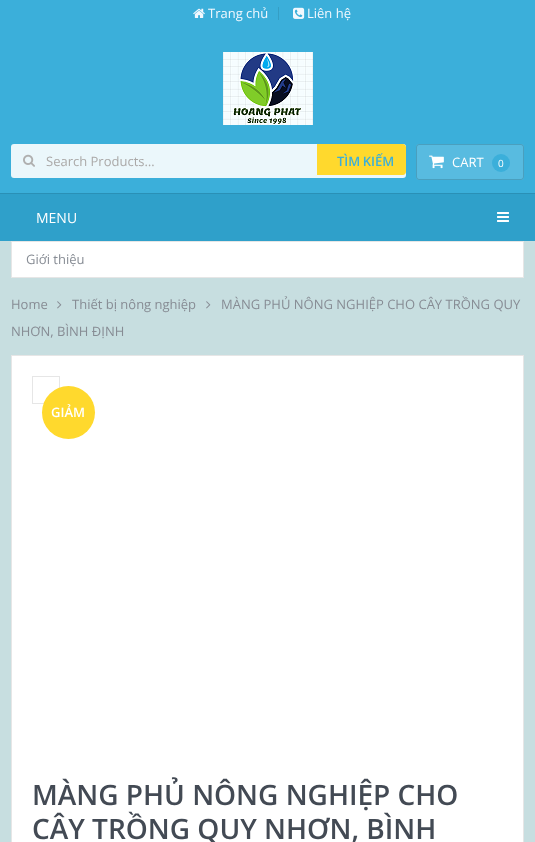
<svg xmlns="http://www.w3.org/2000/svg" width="535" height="842">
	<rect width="100%" height="100%" fill="#C7DEE0" />
	<rect x="0" y="0" width="535" height="193" fill="#3BAFDA" />
	<rect x="278" y="7" width="1" height="13" fill="#359EC4" />
	<image x="193" y="8" width="12" height="10" href="assets/img1.png" />
	<text x="208" y="18" font-family="Open Sans" font-size="13" fill="#F1F8FE">Trang chủ</text>
	<image x="293" y="7" width="12" height="12" href="assets/img2.png" />
	<text x="307" y="18" font-family="Open Sans" font-size="13" fill="#F1F8FE">Liên hệ</text>
	<image x="223" y="52" width="90" height="73" href="assets/img3.png" />
	<rect x="11" y="144" width="395" height="34" rx="3" fill="#EBF7FB" />
	<image x="23" y="154" width="12" height="13" href="assets/img4.png" />
	<text x="46" y="166" font-family="Open Sans" font-size="13" fill="#ABA9A8">Search Products…</text>
	<path d="M317 144H403C404.5 144 406 145.5 406 147V172C406 173.5 404.5 175 403 175H317Z" fill="#FFD92D" />
	<text x="337" y="166" word-spacing="-1" font-family="Open Sans" font-size="13" font-weight="600" fill="#3BAFDA">TÌM KIẾM</text>
	<rect x="416" y="144" width="108" height="36" rx="3" fill="#58BBE0" />
	<rect x="416.5" y="144.5" width="107" height="35" rx="2.5" fill="none" stroke="#000000" stroke-opacity="0.15" />
	<image x="429" y="155" width="15" height="14" href="assets/img5.png" />
	<text x="452" y="167" font-family="Open Sans" font-size="13" fill="#FFFFFF">CART</text>
	<circle cx="501" cy="163" r="9" fill="#3BAFDA" />
	<text x="498" y="167" font-family="Open Sans" font-size="10" fill="#FFFFFF">0</text>
	<rect x="0" y="194" width="535" height="47" fill="#2FA0CA" />
	<rect x="0" y="193" width="535" height="1" fill="#2A90B6" />
	<text x="36" y="223" font-family="Open Sans" font-size="14" fill="#FFFFFF">MENU</text>
	<image x="497" y="212" width="12" height="10" href="assets/img6.png" />
	<rect x="11.5" y="241.5" width="512" height="36" fill="#FFFFFF" stroke="#E6E6E6" />
	<g font-family="Open Sans" font-size="13" fill="#878C94">
		<text x="26" y="264">Giới thiệu</text>
		<text x="11" y="309">Home</text>
	</g>
	<image x="57" y="301" width="5" height="8" href="assets/img7.png" />
	<text x="72" y="309" font-family="Open Sans" font-size="13" fill="#878C94">Thiết bị nông nghiệp</text>
	<image x="206" y="301" width="5" height="8" href="assets/img7.png" />
	<g font-family="Open Sans" font-size="13" fill="#878C94">
		<text x="221" y="309">MÀNG PHỦ NÔNG NGHIỆP CHO CÂY TRỒNG QUY</text>
		<text x="11" y="336">NHƠN, BÌNH ĐỊNH</text>
	</g>
	<rect x="11.5" y="355.5" width="512" height="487" fill="#FFFFFF" stroke="#E6E6E6" />
	<rect x="32.5" y="376.5" width="27" height="27" fill="none" stroke="#E6E6E6" />
	<circle cx="68.5" cy="412.5" r="26.5" fill="#FFD92D" />
	<text x="51" y="417" font-family="Open Sans" font-size="13" font-weight="600" fill="#FFFFFF">GIẢM</text>
	<g font-family="Open Sans" font-size="28" font-weight="600" fill="#434A54">
		<text x="32" y="805">MÀNG PHỦ NÔNG NGHIỆP CHO</text>
		<text x="32" y="839">CÂY TRỒNG QUY NHƠN, BÌNH</text>
	</g>
</svg>
